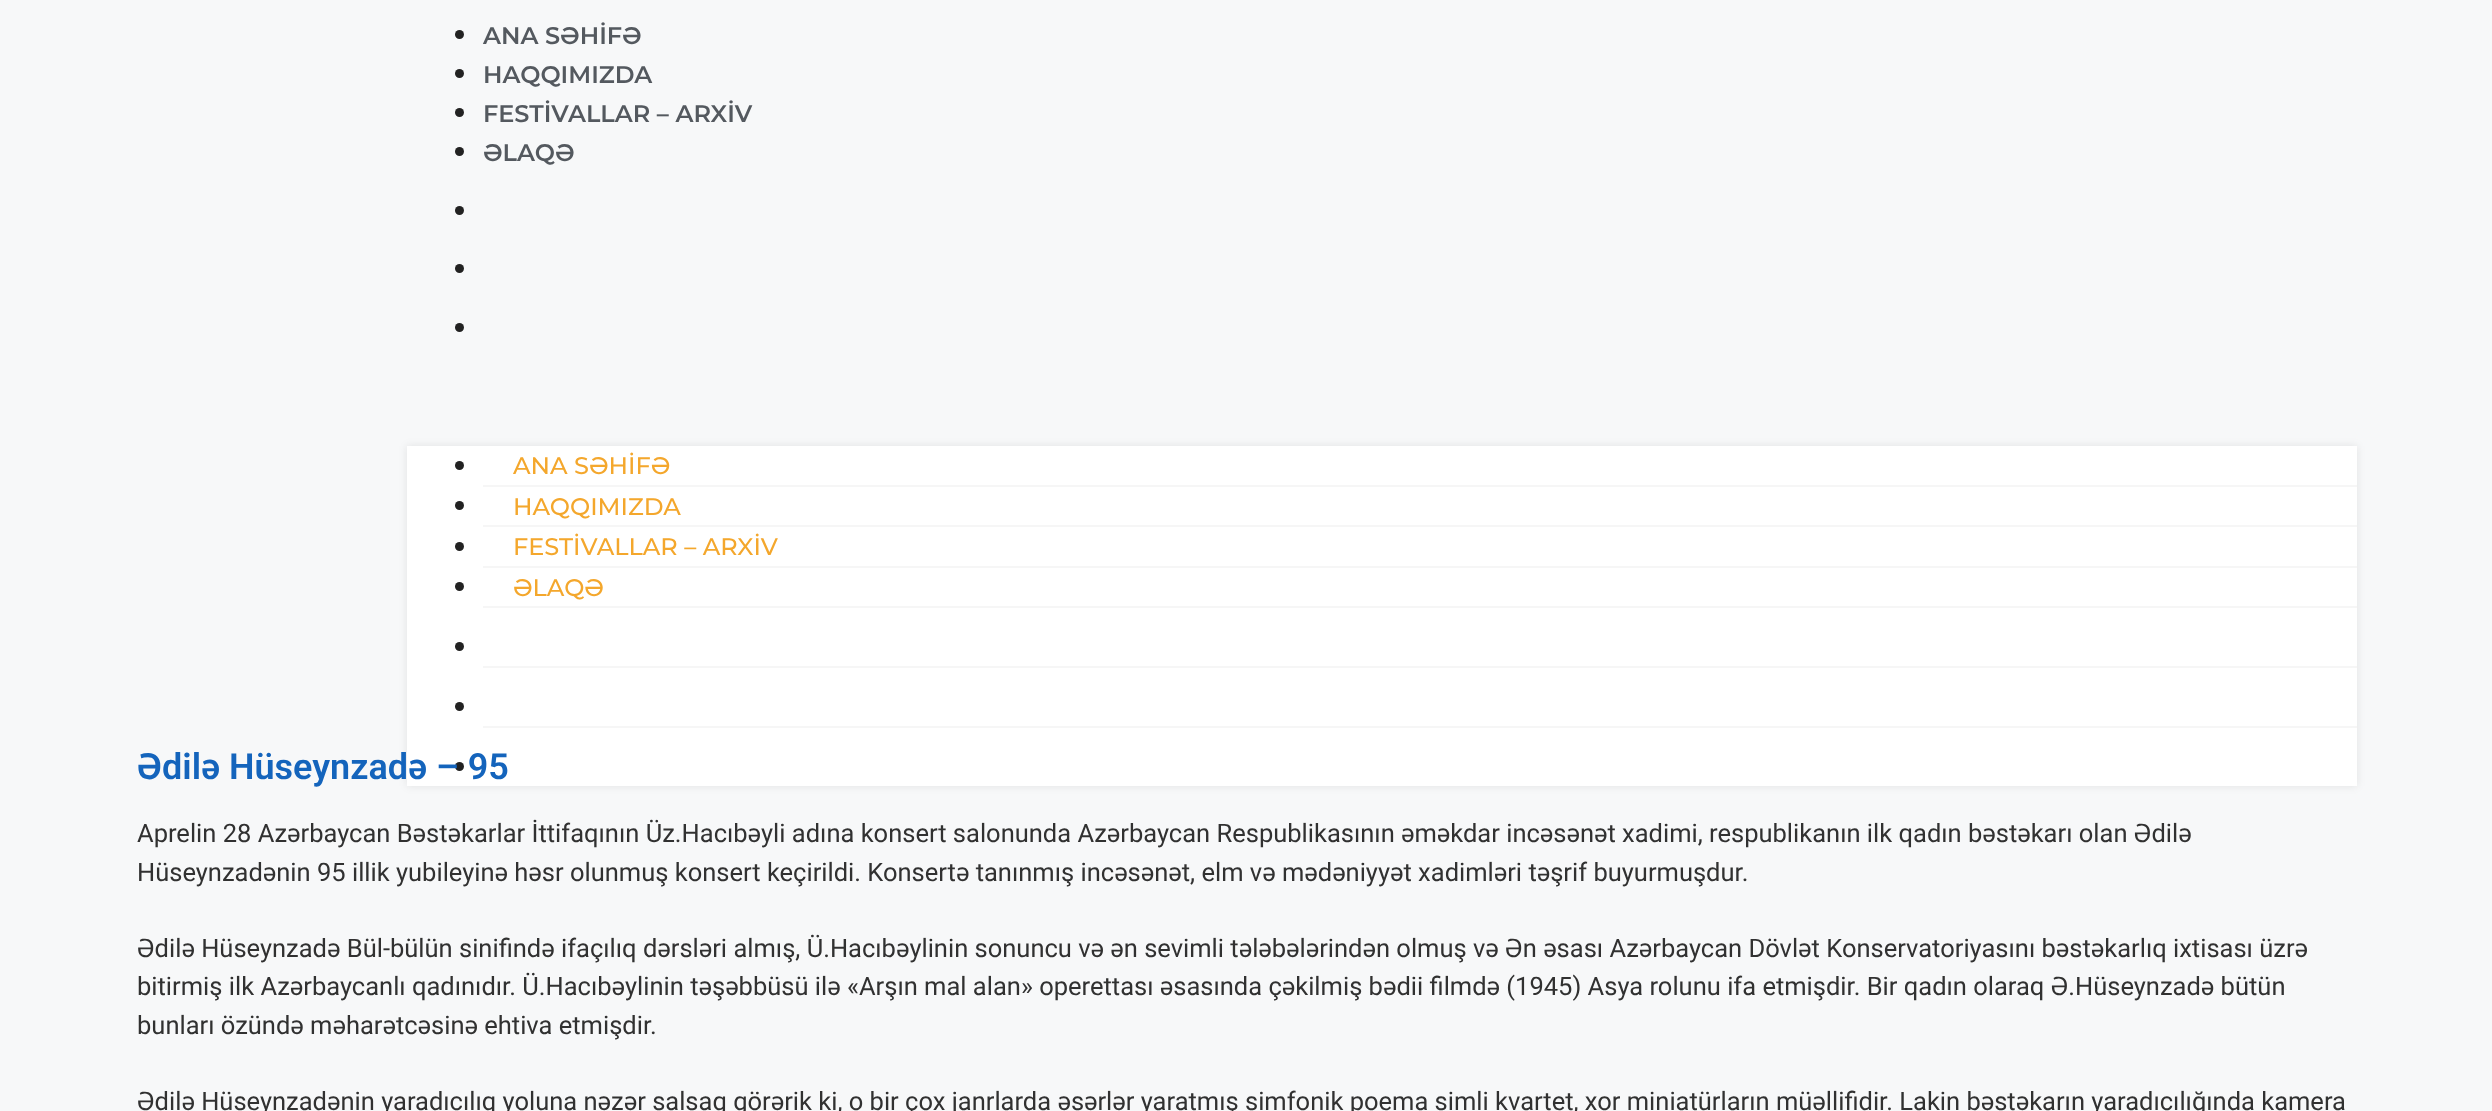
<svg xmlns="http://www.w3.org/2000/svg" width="2492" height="1111">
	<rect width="100%" height="100%" fill="#F7F8F9" />
	<circle cx="459.5" cy="34.5" r="4.5" fill="#222222" />
	<text x="483" y="44" font-family="Montserrat" font-size="24" font-weight="600" fill="#54595F">ANA SƏHİFƏ</text>
	<circle cx="459.5" cy="73.5" r="4.5" fill="#222222" />
	<text x="483" y="83" font-family="Montserrat" font-size="24" font-weight="600" fill="#54595F">HAQQIMIZDA</text>
	<circle cx="459.5" cy="112.5" r="4.5" fill="#222222" />
	<text x="483" y="122" font-family="Montserrat" font-size="24" font-weight="600" fill="#54595F">FESTİVALLAR – ARXİV</text>
	<circle cx="459.5" cy="151.5" r="4.5" fill="#222222" />
	<text x="483" y="161" font-family="Montserrat" font-size="24" font-weight="600" fill="#54595F">ƏLAQƏ</text>
	<circle cx="459.5" cy="210.5" r="4.5" fill="#222222" />
	<circle cx="459.5" cy="268.5" r="4.5" fill="#222222" />
	<circle cx="459.5" cy="327.5" r="4.5" fill="#222222" />
	<rect x="407" y="446" width="1950" height="340" fill="#000000" fill-opacity="0.09" filter="blur(4.5px)" />
	<rect x="407" y="446" width="1950" height="340" fill="#FFFFFF" />
	<rect x="483" y="485" width="1874" height="2" fill="#F6F6F6" />
	<circle cx="459.5" cy="465.5" r="4.5" fill="#222222" />
	<text x="513" y="474" font-family="Montserrat" font-size="24" font-weight="500" fill="#F4A72C">ANA SƏHİFƏ</text>
	<rect x="483" y="525" width="1874" height="2" fill="#F6F6F6" />
	<circle cx="459.5" cy="505.5" r="4.5" fill="#222222" />
	<text x="513" y="515" font-family="Montserrat" font-size="24" font-weight="500" fill="#F4A72C">HAQQIMIZDA</text>
	<rect x="483" y="566" width="1874" height="2" fill="#F6F6F6" />
	<circle cx="459.5" cy="546.5" r="4.5" fill="#222222" />
	<text x="513" y="555" font-family="Montserrat" font-size="24" font-weight="500" fill="#F4A72C">FESTİVALLAR – ARXİV</text>
	<rect x="483" y="606" width="1874" height="2" fill="#F6F6F6" />
	<circle cx="459.5" cy="586.5" r="4.5" fill="#222222" />
	<text x="513" y="596" font-family="Montserrat" font-size="24" font-weight="500" fill="#F4A72C">ƏLAQƏ</text>
	<rect x="483" y="666" width="1874" height="2" fill="#F6F6F6" />
	<circle cx="459.5" cy="646.5" r="4.5" fill="#222222" />
	<rect x="483" y="726" width="1874" height="2" fill="#F6F6F6" />
	<circle cx="459.5" cy="706.5" r="4.5" fill="#222222" />
	<circle cx="459.5" cy="766.5" r="4.5" fill="#222222" />
	<text x="137" y="779" font-family="Roboto" font-size="36" font-weight="600" fill="#1464BC">Ədilə Hüseynzadə – 95</text>
	<g font-family="Roboto" font-size="25.5" fill="#313131">
		<text x="137" y="842">Aprelin 28 Azərbaycan Bəstəkarlar İttifaqının Üz.Hacıbəyli adına konsert salonunda Azərbaycan Respublikasının əməkdar incəsənət xadimi, respublikanın ilk qadın bəstəkarı olan Ədilə</text>
		<text x="137" y="881">Hüseynzadənin 95 illik yubileyinə həsr olunmuş konsert keçirildi. Konsertə tanınmış incəsənət, elm və mədəniyyət xadimləri təşrif buyurmuşdur.</text>
		<text x="137" y="957">Ədilə Hüseynzadə Bül-bülün sinifində ifaçılıq dərsləri almış, Ü.Hacıbəylinin sonuncu və ən sevimli tələbələrindən olmuş və Ən əsası Azərbaycan Dövlət Konservatoriyasını bəstəkarlıq ixtisası üzrə</text>
		<text x="137" y="995">bitirmiş ilk Azərbaycanlı qadınıdır. Ü.Hacıbəylinin təşəbbüsü ilə «Arşın mal alan» operettası əsasında çəkilmiş bədii filmdə (1945) Asya rolunu ifa etmişdir. Bir qadın olaraq Ə.Hüseynzadə bütün</text>
		<text x="137" y="1034">bunları özündə məharətcəsinə ehtiva etmişdir.</text>
		<text x="137" y="1110">Ədilə Hüseynzadənin yaradıcılıq yoluna nəzər salsaq görərik ki, o bir çox janrlarda əsərlər yaratmış simfonik poema simli kvartet, xor miniatürların müəllifidir. Lakin bəstəkarın yaradıcılığında kamera</text>
	</g>
</svg>
